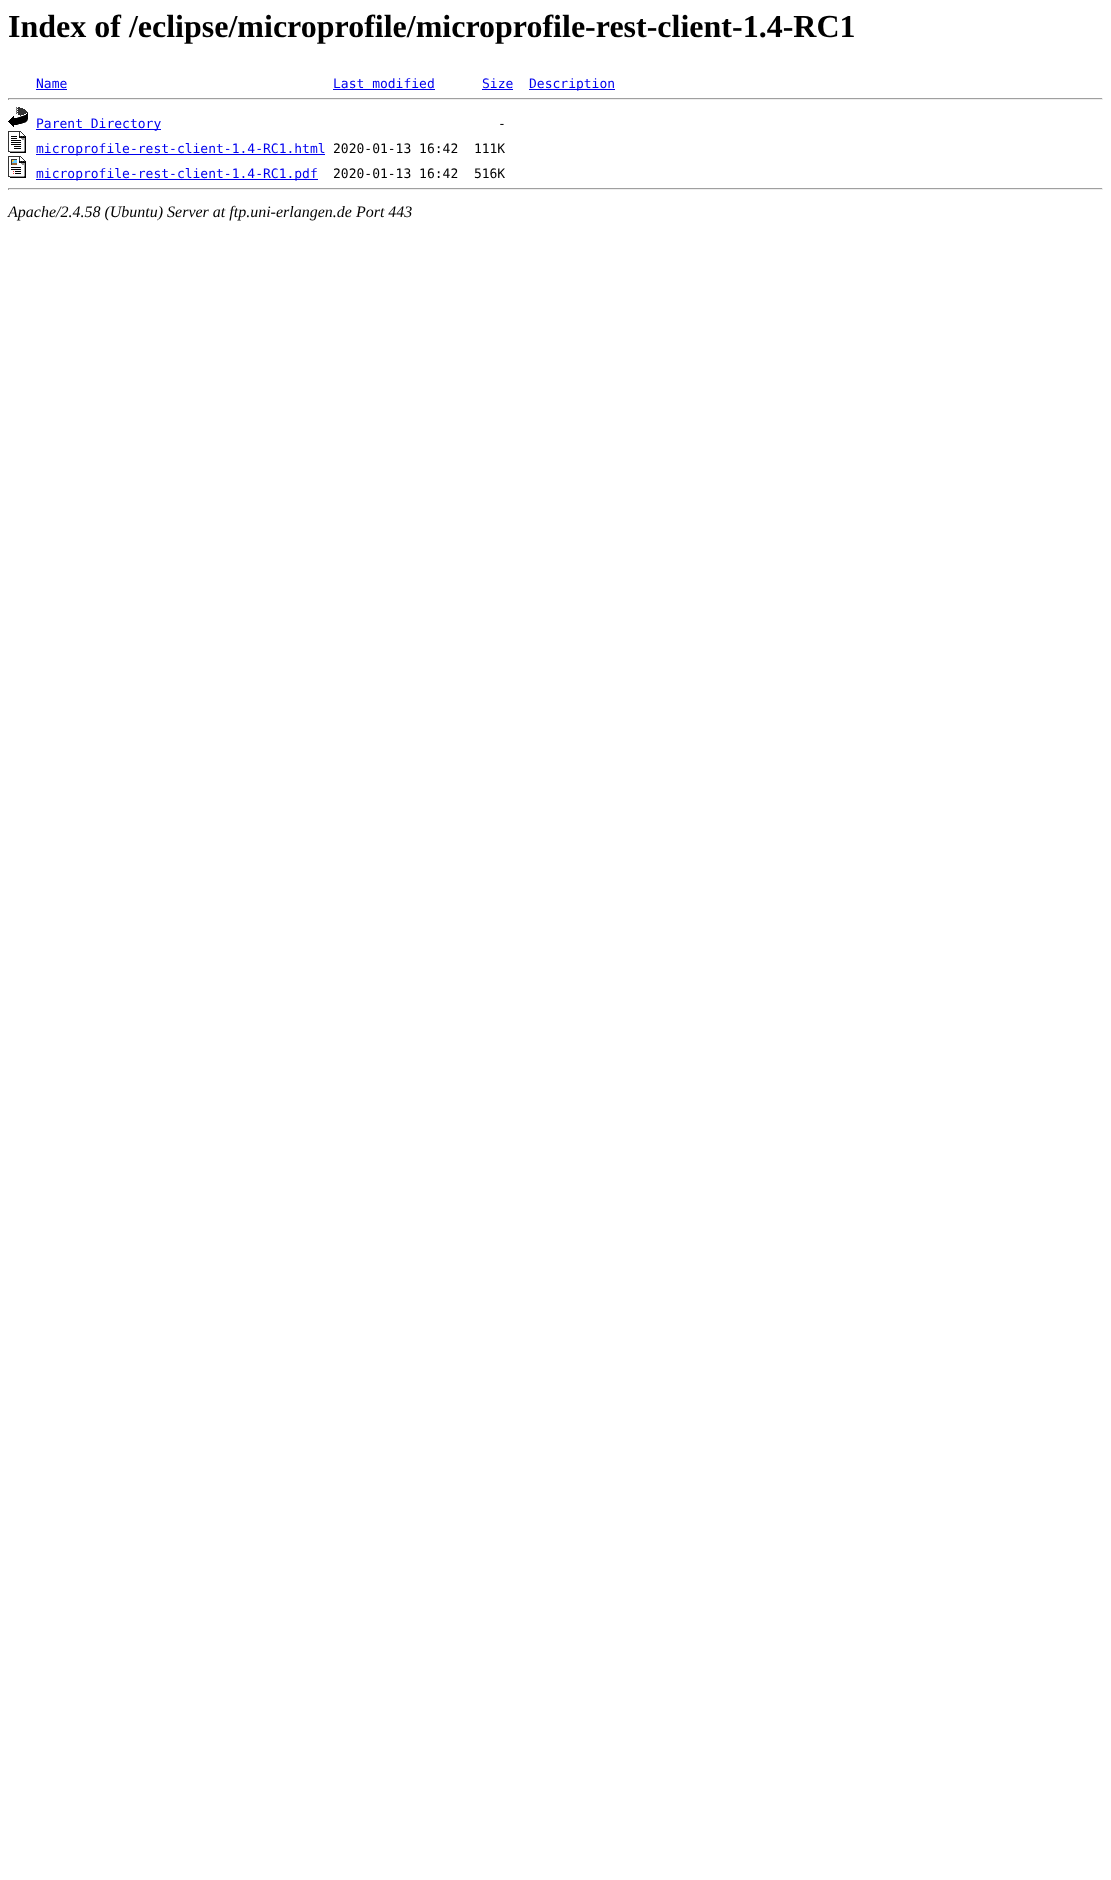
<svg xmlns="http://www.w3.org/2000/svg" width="1111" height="1880">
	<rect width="100%" height="100%" fill="#FFFFFF" />
	<text x="8" y="37" font-family="Liberation Serif" font-size="32" font-weight="700" fill="#000000">Index of /eclipse/microprofile/microprofile-rest-client-1.4-RC1</text>
	<text x="36" y="88" font-family="DejaVu Sans Mono" font-size="13" fill="#0000EE">Name</text>
	<rect x="36" y="89" width="31" height="1" fill="#0000EE" />
	<text x="333" y="88" font-family="DejaVu Sans Mono" font-size="13" fill="#0000EE">Last modified</text>
	<rect x="333" y="89" width="102" height="1" fill="#0000EE" />
	<text x="482" y="88" font-family="DejaVu Sans Mono" font-size="13" fill="#0000EE">Size</text>
	<rect x="482" y="89" width="31" height="1" fill="#0000EE" />
	<rect x="529" y="89" width="86" height="1" fill="#0000EE" />
	<text x="529" y="88" font-family="DejaVu Sans Mono" font-size="13" fill="#0000EE">Description</text>
	<rect x="8" y="98" width="1095" height="1" fill="#9F9F9F" />
	<rect x="1102" y="98" width="1" height="2" fill="#EEEEEE" />
	<rect x="8" y="99" width="1095" height="1" fill="#EEEEEE" />
	<rect x="8" y="98" width="1" height="2" fill="#9F9F9F" />
	<image x="8" y="107" width="20" height="20" href="assets/img1.png" />
	<rect x="36" y="129" width="125" height="1" fill="#0000EE" />
	<text x="36" y="128" font-family="DejaVu Sans Mono" font-size="13" fill="#0000EE">Parent Directory</text>
	<text x="498" y="128" font-family="DejaVu Sans Mono" font-size="13" fill="#000000">-</text>
	<image x="8" y="131" width="18" height="22" href="assets/img2.png" />
	<rect x="36" y="154" width="289" height="1" fill="#0000EE" />
	<text x="36" y="153" font-family="DejaVu Sans Mono" font-size="13" fill="#0000EE">microprofile-rest-client-1.4-RC1.html</text>
	<text x="333" y="153" font-family="DejaVu Sans Mono" font-size="13" fill="#000000" xml:space="preserve">2020-01-13 16:42  111K</text>
	<image x="8" y="156" width="18" height="22" href="assets/img3.png" />
	<rect x="36" y="179" width="282" height="1" fill="#0000EE" />
	<text x="36" y="178" font-family="DejaVu Sans Mono" font-size="13" fill="#0000EE">microprofile-rest-client-1.4-RC1.pdf</text>
	<text x="333" y="178" font-family="DejaVu Sans Mono" font-size="13" fill="#000000" xml:space="preserve">2020-01-13 16:42  516K</text>
	<rect x="8" y="188" width="1095" height="1" fill="#9F9F9F" />
	<rect x="1102" y="188" width="1" height="2" fill="#EEEEEE" />
	<rect x="8" y="189" width="1095" height="1" fill="#EEEEEE" />
	<rect x="8" y="188" width="1" height="2" fill="#9F9F9F" />
	<text x="8" y="217" font-family="Liberation Serif" font-size="16" font-style="italic" fill="#000000">Apache/2.4.58 (Ubuntu) Server at ftp.uni-erlangen.de Port 443</text>
</svg>
